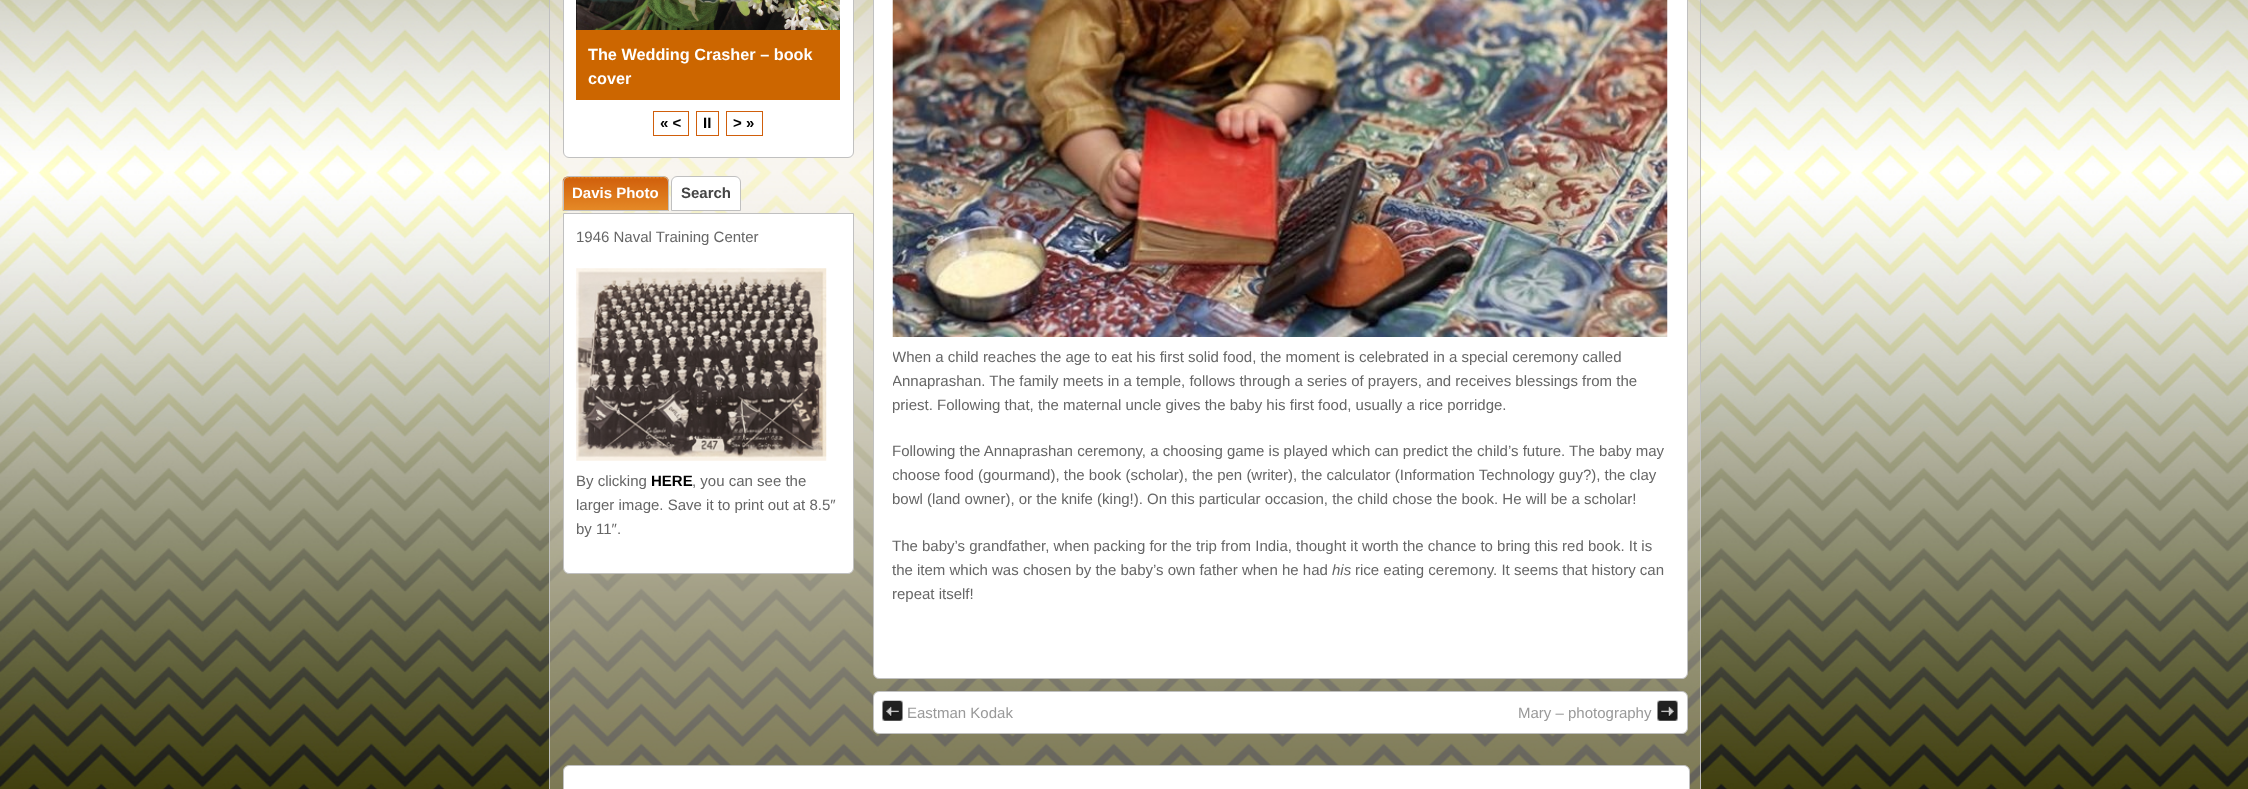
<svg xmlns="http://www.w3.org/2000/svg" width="2248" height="789">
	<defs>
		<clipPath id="clip1"><rect x="893" y="0" width="775" height="635" /></clipPath>
	</defs>
	<rect width="100%" height="100%" fill="#FFFFFF" />
	<image x="0" y="0" width="2248" height="789" href="assets/img1.png" />
	<rect x="549.5" y="-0.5" width="1151" height="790" fill="#EEE5D6" fill-opacity="0.35" stroke="#C0C0C0" />
	<path d="M563.5-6.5H853.5V152C853.5 155 851 157.5 848 157.5H569C566 157.5 563.5 155 563.5 152Z" fill="#FFFFFF" stroke="#C0C0C0" />
	<rect x="576" y="0" width="1" height="30" fill="#000000" />
	<image x="576" y="0" width="264" height="30" href="assets/img2.png" />
	<rect x="576" y="30" width="264" height="70" fill="#CC6600" />
	<g font-family="Liberation Sans" font-size="16.25" font-weight="700" fill="#FFFFFF">
		<text x="588" y="60">The Wedding Crasher – book</text>
		<text x="588" y="84">cover</text>
	</g>
	<rect x="653.5" y="111.5" width="35" height="24" fill="none" stroke="#D05E0B" />
	<text x="660" y="128" font-family="Liberation Sans" font-size="15" font-weight="700" fill="#000000">« &lt;</text>
	<rect x="696.5" y="111.5" width="22" height="24" fill="none" stroke="#D05E0B" />
	<text x="703" y="128" font-family="Liberation Sans" font-size="15" font-weight="700" fill="#000000">II</text>
	<rect x="726.5" y="111.5" width="36" height="24" fill="none" stroke="#D05E0B" />
	<text x="733" y="128" font-family="Liberation Sans" font-size="15" font-weight="700" fill="#000000">&gt; »</text>
	<path d="M569 176H663C666.5 176 669 178.5 669 182V211H563V182C563 178.5 565.5 176 569 176Z" fill="#F6AC3D" />
	<image x="562" y="177" width="107" height="34" href="assets/img3.png" />
	<path d="M569 176.5H663C666 176.5 668.5 179 668.5 182V210.5H563.5V182C563.5 179 566 176.5 569 176.5Z" fill="none" stroke="#C0C0C0" />
	<text x="572" y="198" font-family="Liberation Sans" font-size="15" font-weight="700" fill="#FFFFFF">Davis Photo</text>
	<path d="M677 176.5H735C738 176.5 740.5 179 740.5 182V210.5H671.5V182C671.5 179 674 176.5 677 176.5Z" fill="#FFFFFF" stroke="#C0C0C0" />
	<text x="681" y="198" font-family="Liberation Sans" font-size="15" font-weight="700" fill="#444444">Search</text>
	<path d="M563.5 213.5H853.5V568C853.5 571 851 573.5 848 573.5H569C566 573.5 563.5 571 563.5 568Z" fill="#FFFFFF" stroke="#C0C0C0" />
	<text x="576" y="242" font-family="Liberation Sans" font-size="15" fill="#666666">1946 Naval Training Center</text>
	<image x="576" y="268" width="251" height="193" href="assets/img4.png" />
	<text x="576" y="486" font-family="Liberation Sans" font-size="15" fill="#666666">By clicking</text>
	<text x="651" y="486" font-family="Liberation Sans" font-size="15" font-weight="700" fill="#000000">HERE</text>
	<g font-family="Liberation Sans" font-size="15" fill="#666666">
		<text x="692" y="486">, you can see the</text>
		<text x="576" y="510">larger image. Save it to print out at 8.5″</text>
		<text x="576" y="534">by 11″.</text>
	</g>
	<rect x="873.5" y="-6.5" width="814" height="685" rx="5.5" fill="#FFFFFF" stroke="#C0C0C0" />
	<image x="892" y="0" width="776" height="337" href="assets/img5.png" />
	<g clip-path="url(#clip1)">
		<g font-family="Liberation Sans" font-size="15" fill="#666666">
			<text x="892" y="362">When a child reaches the age to eat his first solid food, the moment is celebrated in a special ceremony called</text>
			<text x="892" y="386">Annaprashan. The family meets in a temple, follows through a series of prayers, and receives blessings from the</text>
			<text x="892" y="410">priest. Following that, the maternal uncle gives the baby his first food, usually a rice porridge.</text>
		</g>
	</g>
	<text x="892" y="456" font-family="Liberation Sans" font-size="15" fill="#666666">Following the Annaprashan ceremony, a choosing game is played which can predict the child’s future. The baby may</text>
	<g clip-path="url(#clip1)">
		<g font-family="Liberation Sans" font-size="15" fill="#666666">
			<text x="892" y="480">choose food (gourmand), the book (scholar), the pen (writer), the calculator (Information Technology guy?), the clay</text>
			<text x="892" y="504">bowl (land owner), or the knife (king!). On this particular occasion, the child chose the book. He will be a scholar!</text>
		</g>
	</g>
	<g font-family="Liberation Sans" font-size="15" fill="#666666">
		<text x="892" y="551">The baby’s grandfather, when packing for the trip from India, thought it worth the chance to bring this red book. It is</text>
		<text x="892" y="575">the item which was chosen by the baby’s own father when he had</text>
	</g>
	<text x="1332" y="575" font-family="Liberation Sans" font-size="15" font-style="italic" fill="#666666">his</text>
	<text x="1355" y="575" font-family="Liberation Sans" font-size="15" fill="#666666">rice eating ceremony. It seems that history can</text>
	<g clip-path="url(#clip1)">
		<text x="892" y="599" font-family="Liberation Sans" font-size="15" fill="#666666">repeat itself!</text>
	</g>
	<rect x="873.5" y="691.5" width="814" height="42" rx="5.5" fill="#FFFFFF" stroke="#C0C0C0" />
	<image x="882" y="700" width="21" height="21" href="assets/img6.png" />
	<g font-family="Liberation Sans" font-size="15" fill="#999999">
		<text x="907" y="718">Eastman Kodak</text>
		<text x="1518" y="718">Mary – photography</text>
	</g>
	<image x="1657" y="700" width="21" height="21" href="assets/img7.png" />
	<rect x="563.5" y="765.5" width="1126" height="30" rx="5.5" fill="#FFFFFF" stroke="#C0C0C0" />
</svg>
